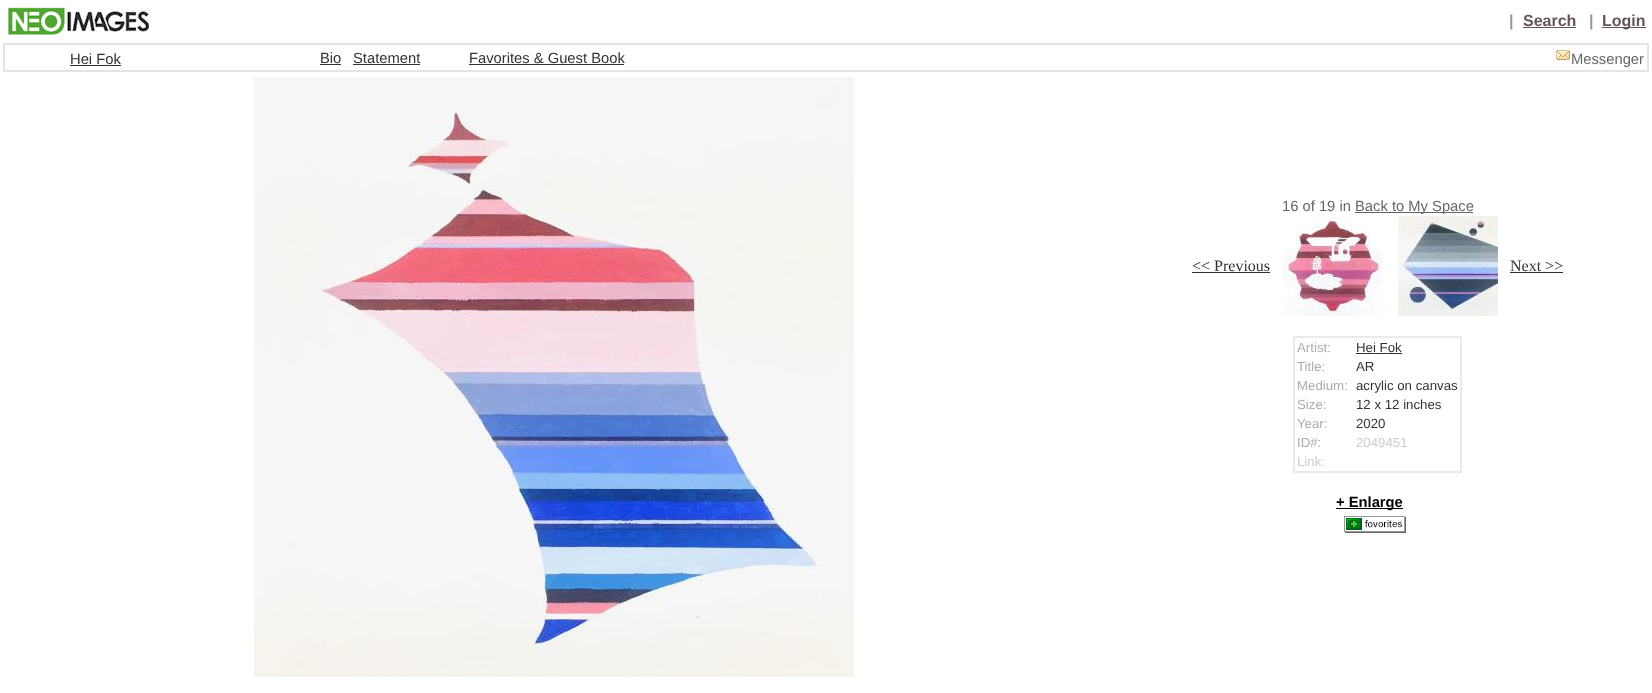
<svg xmlns="http://www.w3.org/2000/svg" width="1652" height="693">
	<rect width="100%" height="100%" fill="#FFFFFF" />
	<image x="6" y="6" width="144" height="30" href="assets/img1.png" />
	<text x="1509" y="26" font-family="Liberation Sans" font-size="16" font-weight="700" fill="#999999">|</text>
	<text x="1523" y="26" font-family="Liberation Sans" font-size="16" font-weight="700" fill="#665557">Search</text>
	<rect x="1523" y="27" width="53" height="1" fill="#665557" />
	<text x="1589" y="26" font-family="Liberation Sans" font-size="16" font-weight="700" fill="#999999">|</text>
	<rect x="1602" y="27" width="44" height="1" fill="#665557" />
	<text x="1602" y="26" font-family="Liberation Sans" font-size="16" font-weight="700" fill="#665557">Login</text>
	<rect x="3.5" y="43.5" width="1645" height="28" fill="none" stroke="#E4E4E4" />
	<rect x="4.5" y="44.5" width="1643" height="26" fill="none" stroke="#E4E4E4" />
	<text x="70" y="64" font-family="Liberation Sans" font-size="14.75" fill="#333333">Hei Fok</text>
	<rect x="70" y="65" width="51" height="1" fill="#333333" />
	<text x="320" y="63" font-family="Liberation Sans" font-size="14.75" fill="#333333">Bio</text>
	<rect x="320" y="64" width="21" height="1" fill="#333333" />
	<text x="353" y="63" font-family="Liberation Sans" font-size="14.75" fill="#333333">Statement</text>
	<rect x="353" y="64" width="67" height="1" fill="#333333" />
	<text x="469" y="63" font-family="Liberation Sans" font-size="14.75" fill="#333333">Favorites &amp; Guest Book</text>
	<rect x="469" y="64" width="155" height="1" fill="#333333" />
	<image x="1556" y="50" width="14" height="10" href="assets/img2.png" />
	<text x="1571" y="64" font-family="Liberation Sans" font-size="14.75" fill="#666666">Messenger</text>
	<image x="254" y="77" width="600" height="600" href="assets/img3.png" />
	<text x="1282" y="211" font-family="Liberation Sans" font-size="14.75" fill="#666666">16 of 19 in</text>
	<rect x="1355" y="212" width="118" height="1" fill="#666666" />
	<text x="1355" y="211" font-family="Liberation Sans" font-size="14.75" fill="#666666">Back to My Space</text>
	<text x="1192" y="271" font-family="Liberation Serif" font-size="16" fill="#333333">&lt;&lt; Previous</text>
	<rect x="1192" y="272" width="78" height="1" fill="#333333" />
	<image x="1282" y="216" width="100" height="100" href="assets/img4.png" />
	<image x="1398" y="216" width="100" height="100" href="assets/img5.png" />
	<text x="1510" y="271" font-family="Liberation Serif" font-size="16" fill="#333333">Next &gt;&gt;</text>
	<rect x="1510" y="272" width="53" height="1" fill="#333333" />
	<rect x="1293.5" y="336.5" width="168" height="136" fill="none" stroke="#EAEAEA" />
	<rect x="1294.5" y="337.5" width="166" height="134" fill="none" stroke="#EAEAEA" />
	<text x="1297" y="352" font-family="Liberation Sans" font-size="13.25" fill="#ACACAC">Artist:</text>
	<text x="1356" y="352" font-family="Liberation Sans" font-size="13.25" fill="#333333">Hei Fok</text>
	<rect x="1356" y="353" width="46" height="1" fill="#333333" />
	<text x="1297" y="371" font-family="Liberation Sans" font-size="13.25" fill="#ACACAC">Title:</text>
	<text x="1356" y="371" font-family="Liberation Sans" font-size="13.25" fill="#333333">AR</text>
	<text x="1297" y="390" font-family="Liberation Sans" font-size="13.25" fill="#ACACAC">Medium:</text>
	<text x="1356" y="390" font-family="Liberation Sans" font-size="13.25" fill="#333333">acrylic on canvas</text>
	<text x="1297" y="409" font-family="Liberation Sans" font-size="13.25" fill="#ACACAC">Size:</text>
	<text x="1356" y="409" font-family="Liberation Sans" font-size="13.25" fill="#333333">12 x 12 inches</text>
	<text x="1297" y="428" font-family="Liberation Sans" font-size="13.25" fill="#ACACAC">Year:</text>
	<text x="1356" y="428" font-family="Liberation Sans" font-size="13.25" fill="#333333">2020</text>
	<text x="1297" y="447" font-family="Liberation Sans" font-size="13.25" fill="#ACACAC">ID#:</text>
	<g font-family="Liberation Sans" font-size="13.25" fill="#CCCCCC">
		<text x="1356" y="447">2049451</text>
		<text x="1297" y="466">Link:</text>
	</g>
	<rect x="1336" y="508" width="67" height="1" fill="#000000" />
	<text x="1336" y="507" font-family="Liberation Sans" font-size="14.75" font-weight="700" fill="#000000">+ Enlarge</text>
	<image x="1344" y="516" width="62" height="17" href="assets/img6.png" />
</svg>
